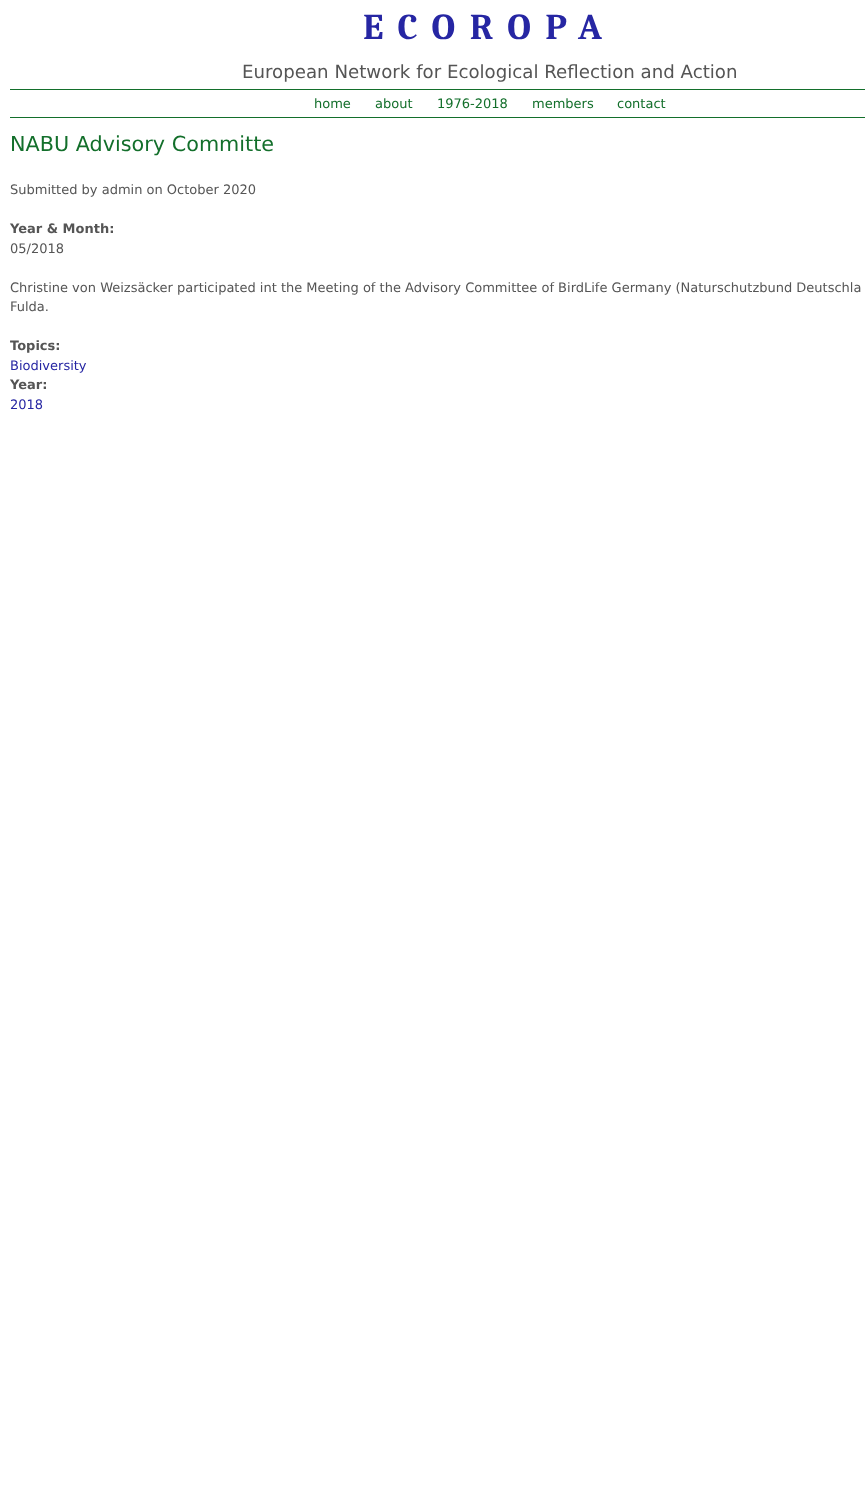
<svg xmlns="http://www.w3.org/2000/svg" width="865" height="1503">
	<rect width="100%" height="100%" fill="#FFFFFF" />
	<text x="363" y="39" font-family="Caladea" font-size="36.5" font-weight="700" letter-spacing="14.5" fill="#2626A3">ECOROPA</text>
	<text x="242" y="78" font-family="DejaVu Sans" font-size="18.2" fill="#555555">European Network for Ecological Reflection and Action</text>
	<rect x="10" y="89" width="855" height="1" fill="#136F2B" />
	<rect x="10" y="117" width="855" height="1" fill="#136F2B" />
	<g font-family="DejaVu Sans" font-size="13" fill="#136F2B">
		<text x="314" y="108">home</text>
		<text x="375" y="108">about</text>
		<text x="437" y="108">1976-2018</text>
		<text x="532" y="108">members</text>
		<text x="617" y="108">contact</text>
	</g>
	<text x="10" y="151" font-family="DejaVu Sans" font-size="20.75" fill="#136F2B">NABU Advisory Committe</text>
	<text x="10" y="194" font-family="DejaVu Sans" font-size="13" fill="#555555">Submitted by admin on October 2020</text>
	<text x="10" y="233" font-family="DejaVu Sans" font-size="13" font-weight="700" fill="#555555">Year &amp; Month:</text>
	<g font-family="DejaVu Sans" font-size="13" fill="#555555">
		<text x="10" y="253">05/2018</text>
		<text x="10" y="292">Christine von Weizsäcker participated int the Meeting of the Advisory Committee of BirdLife Germany (Naturschutzbund Deutschla</text>
		<text x="10" y="311">Fulda.</text>
	</g>
	<text x="10" y="350" font-family="DejaVu Sans" font-size="13" font-weight="700" fill="#555555">Topics:</text>
	<text x="10" y="370" font-family="DejaVu Sans" font-size="13" fill="#2626A3">Biodiversity</text>
	<text x="10" y="389" font-family="DejaVu Sans" font-size="13" font-weight="700" fill="#555555">Year:</text>
	<text x="10" y="409" font-family="DejaVu Sans" font-size="13" fill="#2626A3">2018</text>
</svg>
